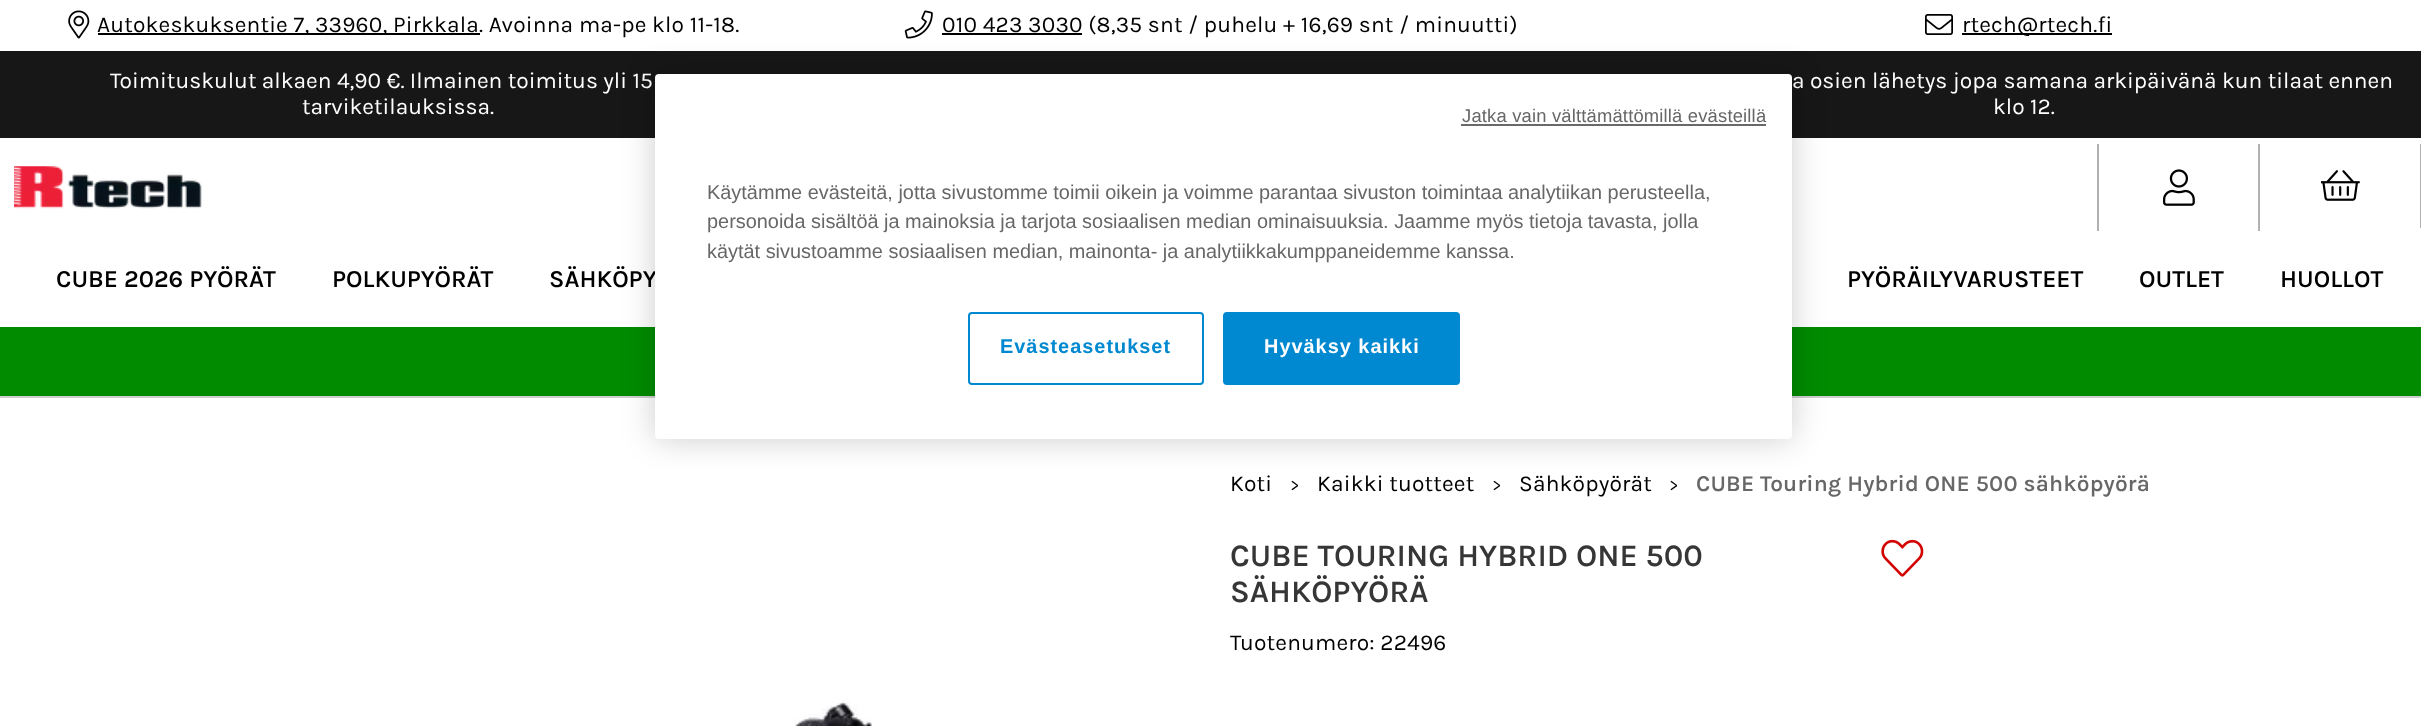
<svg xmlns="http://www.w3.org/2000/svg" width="2421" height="726">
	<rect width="100%" height="100%" fill="#FFFFFF" />
	<rect x="0" y="396" width="2421" height="2" fill="#CECECE" />
	<image x="68" y="10" width="22" height="29" href="assets/img1.png" />
	<rect x="98" y="33" width="382" height="2" fill="#000000" />
	<text x="97" y="32" font-family="Karla" font-size="22.75" letter-spacing="0.18" fill="#000000">Autokeskuksentie 7, 33960, Pirkkala. Avoinna ma-pe klo 11-18.</text>
	<image x="904" y="10" width="29" height="29" href="assets/img2.png" />
	<rect x="942" y="33" width="140" height="2" fill="#000000" />
	<text x="942" y="32" font-family="Karla" font-size="22.75" letter-spacing="0.18" fill="#000000">010 423 3030 (8,35 snt / puhelu + 16,69 snt / minuutti)</text>
	<image x="1925" y="14" width="28" height="21" href="assets/img3.png" />
	<rect x="1962" y="33" width="150" height="2" fill="#000000" />
	<text x="1962" y="32" font-family="Karla" font-size="22.75" letter-spacing="0.18" fill="#000000">rtech@rtech.fi</text>
	<rect x="0" y="51" width="2421" height="87" fill="#171717" />
	<g font-family="Karla" font-size="22.75" fill="#FFFEFE">
		<text x="110" y="88">Toimituskulut alkaen 4,90 €. Ilmainen toimitus yli 15</text>
		<text x="302" y="114">tarviketilauksissa.</text>
		<text x="1792" y="88">a osien lähetys jopa samana arkipäivänä kun tilaat ennen</text>
		<text x="1993" y="114">klo 12.</text>
	</g>
	<image x="14" y="166" width="188" height="43" href="assets/img4.png" />
	<rect x="2258" y="144" width="2" height="87" fill="#B1B1B1" />
	<rect x="2097" y="144" width="2" height="87" fill="#B1B1B1" />
	<image x="2163" y="169" width="32" height="37" href="assets/img5.png" />
	<rect x="2420" y="144" width="1" height="84" fill="#B1B1B1" />
	<image x="2321" y="170" width="39" height="31" href="assets/img6.png" />
	<g font-family="Karla" font-size="24.5" font-weight="600" fill="#000000">
		<text x="56" y="287">CUBE 2026 PYÖRÄT</text>
		<text x="332" y="287">POLKUPYÖRÄT</text>
		<text x="549" y="287">SÄHKÖPY</text>
		<text x="1847" y="287">PYÖRÄILYVARUSTEET</text>
		<text x="2139" y="287">OUTLET</text>
		<text x="2280" y="287">HUOLLOT</text>
	</g>
	<rect x="0" y="327" width="2421" height="69" fill="#008B00" />
	<text x="1230" y="491" font-family="Karla" font-size="22.75" letter-spacing="0.18" fill="#000000">Koti</text>
	<text x="1290" y="491" font-family="Karla" font-size="18" letter-spacing="0.18" fill="#000000">&gt;</text>
	<text x="1317" y="491" font-family="Karla" font-size="22.75" letter-spacing="0.18" fill="#000000">Kaikki tuotteet</text>
	<text x="1492" y="491" font-family="Karla" font-size="18" letter-spacing="0.18" fill="#000000">&gt;</text>
	<text x="1519" y="491" font-family="Karla" font-size="22.75" letter-spacing="0.18" fill="#000000">Sähköpyörät</text>
	<text x="1669" y="491" font-family="Karla" font-size="18" letter-spacing="0.18" fill="#000000">&gt;</text>
	<text x="1696" y="491" font-family="Karla" font-size="22.75" font-weight="600" letter-spacing="0.18" fill="#676767">CUBE Touring Hybrid ONE 500 sähköpyörä</text>
	<g font-family="Karla" font-size="31.5" font-weight="600" fill="#363636">
		<text x="1230" y="566">CUBE TOURING HYBRID ONE 500</text>
		<text x="1230" y="602">SÄHKÖPYÖRÄ</text>
	</g>
	<image x="1881" y="539" width="43" height="38" href="assets/img7.png" />
	<text x="1230" y="650" font-family="Karla" font-size="22.75" letter-spacing="0.18" fill="#000000">Tuotenumero: 22496</text>
	<image x="794" y="699" width="78" height="27" href="assets/img8.png" />
	<rect x="655" y="74" width="1137" height="365" rx="4" fill="#000000" fill-opacity="0.2" filter="blur(16px)" />
	<rect x="655" y="74" width="1137" height="365" rx="4" fill="#FFFFFF" />
	<text x="1462" y="122" font-family="Liberation Sans" font-size="18.4" letter-spacing="0.18" fill="#676767">Jatka vain välttämättömillä evästeillä</text>
	<rect x="1461" y="124" width="305" height="2" fill="#696969" />
	<g font-family="Liberation Sans" font-size="19.92" fill="#676767">
		<text x="707" y="199">Käytämme evästeitä, jotta sivustomme toimii oikein ja voimme parantaa sivuston toimintaa analytiikan perusteella,</text>
		<text x="707" y="228">personoida sisältöä ja mainoksia ja tarjota sosiaalisen median ominaisuuksia. Jaamme myös tietoja tavasta, jolla</text>
		<text x="707" y="258">käytät sivustoamme sosiaalisen median, mainonta- ja analytiikkakumppaneidemme kanssa.</text>
	</g>
	<rect x="969" y="313" width="234" height="71" rx="3" fill="none" stroke="#0088D0" stroke-width="2" />
	<text x="1000" y="353" font-family="Liberation Sans" font-size="19.92" font-weight="700" letter-spacing="1" fill="#0088D0">Evästeasetukset</text>
	<rect x="1224" y="313" width="235" height="71" rx="3" fill="#0088D0" stroke="#0088D0" stroke-width="2" />
	<text x="1264" y="353" font-family="Liberation Sans" font-size="19.92" font-weight="700" letter-spacing="1" fill="#FFFEFE">Hyväksy kaikki</text>
</svg>
